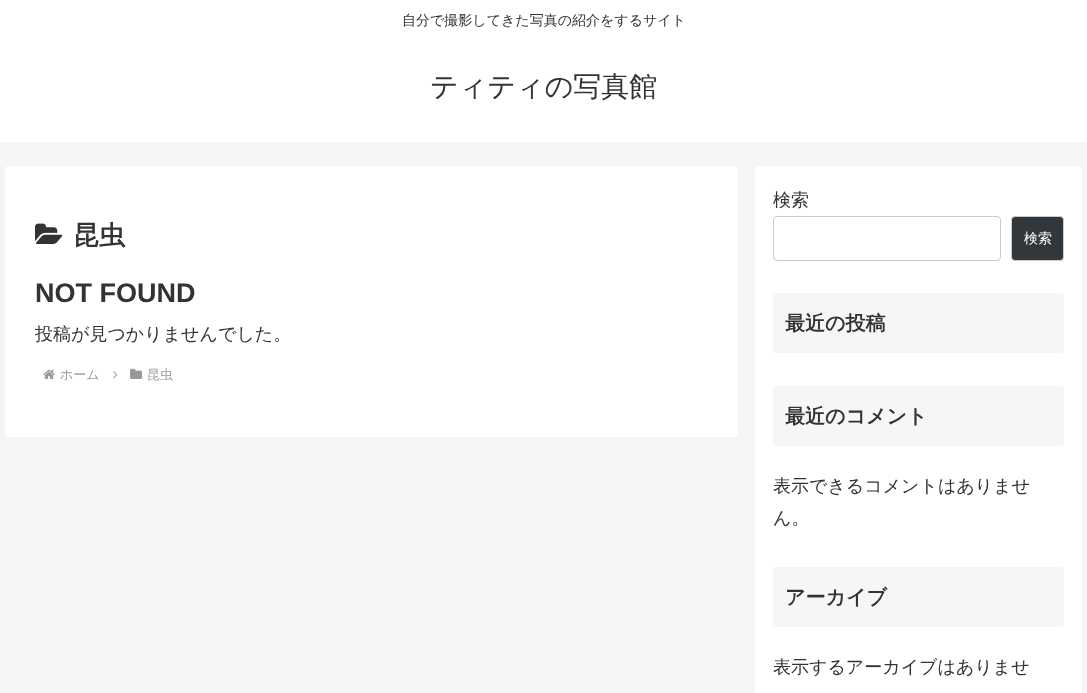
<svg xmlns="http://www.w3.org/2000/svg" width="1087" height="693">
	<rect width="100%" height="100%" fill="#F4F5F7" />
	<rect x="0" y="0" width="1087" height="142" fill="#FFFFFF" />
	<text x="402" y="25" font-family="WenQuanYi Zen Hei" font-size="14" font-weight="500" fill="#333333">自分で撮影してきた写真の紹介をするサイト</text>
	<text x="430" y="96" font-family="WenQuanYi Zen Hei" font-size="28" font-weight="500" fill="#333333">ティティの写真館</text>
	<rect x="5" y="166" width="733" height="271" rx="4" fill="#FFFFFF" />
	<image x="35" y="223" width="28" height="21" href="assets/img1.png" />
	<text x="73" y="244" font-family="WenQuanYi Zen Hei" font-size="26" font-weight="700" fill="#333333">昆虫</text>
	<text x="35" y="302" font-family="Liberation Sans" font-size="27" font-weight="700" fill="#333333">NOT FOUND</text>
	<text x="35" y="340" font-family="WenQuanYi Zen Hei" font-size="18" font-weight="500" fill="#333333">投稿が見つかりませんでした。</text>
	<image x="43" y="369" width="12" height="10" href="assets/img2.png" />
	<text x="60" y="379" font-family="WenQuanYi Zen Hei" font-size="13" font-weight="500" fill="#999999">ホーム</text>
	<image x="113" y="371" width="5" height="8" href="assets/img3.png" />
	<image x="130" y="368" width="13" height="11" href="assets/img4.png" />
	<text x="147" y="379" font-family="WenQuanYi Zen Hei" font-size="13" font-weight="500" fill="#999999">昆虫</text>
	<rect x="755" y="166" width="327" height="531" rx="4" fill="#FFFFFF" />
	<text x="773" y="206" font-family="WenQuanYi Zen Hei" font-size="18" font-weight="500" fill="#333333">検索</text>
	<rect x="773.5" y="216.5" width="227" height="44" rx="3.5" fill="none" stroke="#CCCCCC" />
	<rect x="1011.5" y="216.5" width="52" height="44" rx="3.5" fill="#32373C" stroke="#CCCCCC" />
	<text x="1024" y="243" font-family="WenQuanYi Zen Hei" font-size="14" font-weight="500" fill="#FFFFFF">検索</text>
	<rect x="773" y="293" width="291" height="60" rx="2" fill="#F5F6F7" />
	<text x="785" y="330" font-family="WenQuanYi Zen Hei" font-size="20" font-weight="700" fill="#333333">最近の投稿</text>
	<rect x="773" y="386" width="291" height="60" rx="2" fill="#F5F6F7" />
	<text x="785" y="423" font-family="WenQuanYi Zen Hei" font-size="20" font-weight="700" fill="#333333">最近のコメント</text>
	<g font-family="WenQuanYi Zen Hei" font-size="18" font-weight="500" fill="#333333">
		<text x="773" y="492">表示できるコメントはありませ</text>
		<text x="773" y="524">ん。</text>
	</g>
	<rect x="773" y="567" width="291" height="60" rx="2" fill="#F5F6F7" />
	<text x="785" y="604" font-family="WenQuanYi Zen Hei" font-size="20" font-weight="700" fill="#333333">アーカイブ</text>
	<text x="773" y="673" font-family="WenQuanYi Zen Hei" font-size="18" font-weight="500" fill="#333333">表示するアーカイブはありませ</text>
</svg>
